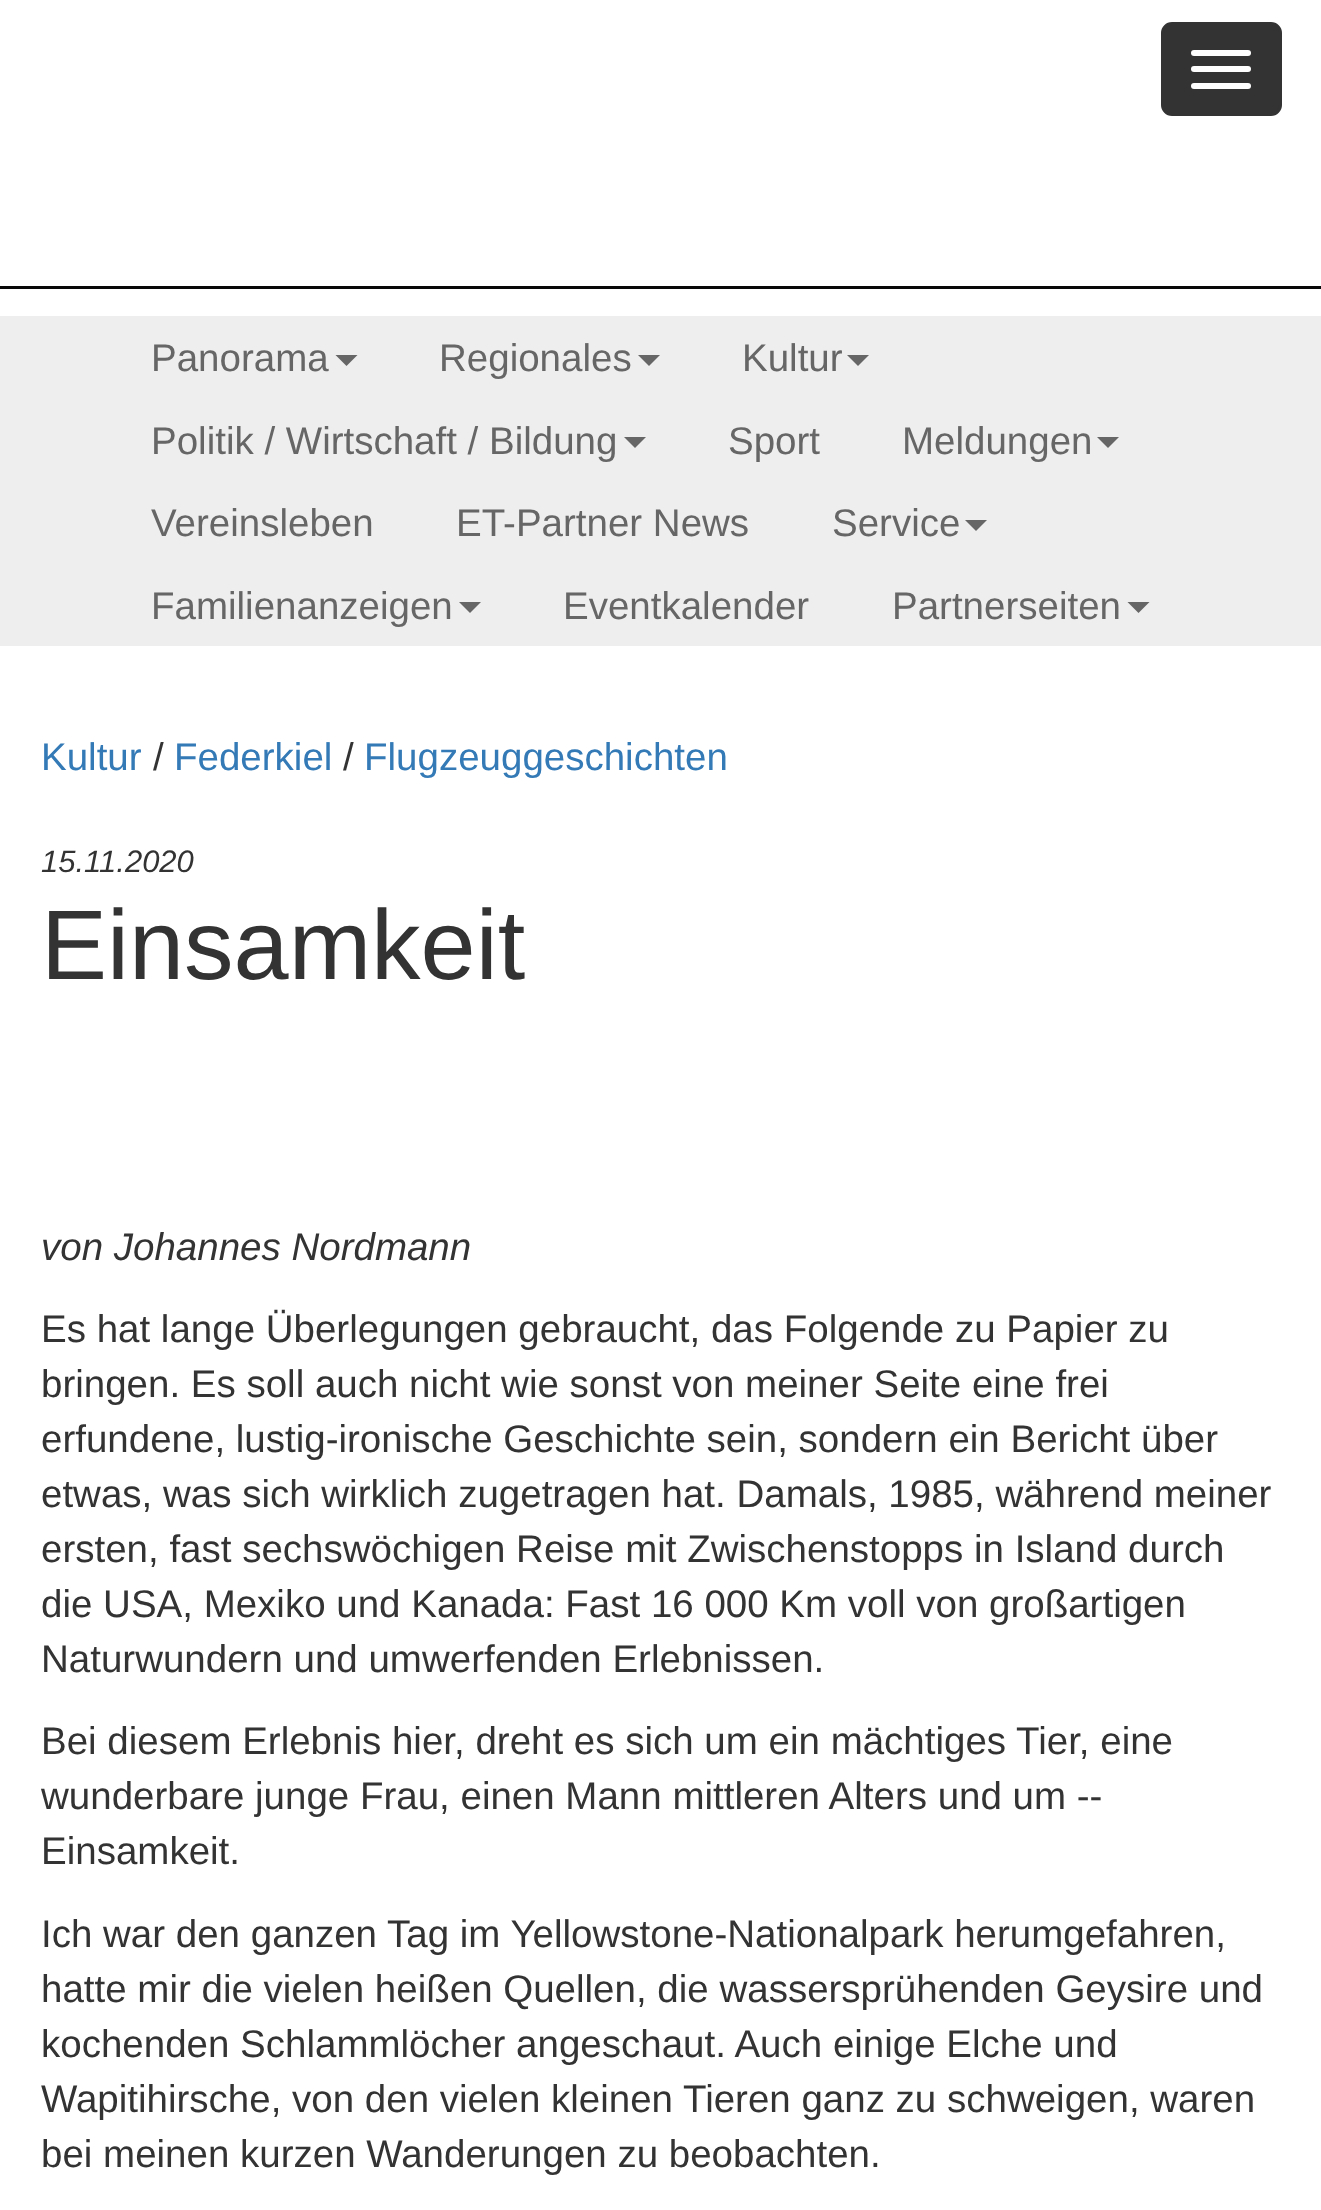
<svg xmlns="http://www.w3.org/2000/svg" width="1321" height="2210">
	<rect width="100%" height="100%" fill="#FFFFFF" />
	<rect x="0" y="286" width="1321" height="3" fill="#080808" />
	<rect x="1162.5" y="23.5" width="118" height="91" rx="9.5" fill="#333333" stroke="#333333" stroke-width="3" />
	<rect x="1191" y="50" width="60" height="6" rx="3" fill="#FFFFFF" />
	<rect x="1191" y="66" width="60" height="6" rx="3" fill="#FFFFFF" />
	<rect x="1191" y="83" width="60" height="6" rx="3" fill="#FFFFFF" />
	<rect x="0" y="316" width="1321" height="330" fill="#EEEEEE" />
	<text x="151" y="371" font-family="Liberation Sans" font-size="38.5" fill="#666666">Panorama</text>
	<path d="M335.5 355H357.5L346.5 366Z" fill="#666666" />
	<text x="439" y="371" font-family="Liberation Sans" font-size="38.5" fill="#666666">Regionales</text>
	<path d="M638 355H660L649 366Z" fill="#666666" />
	<text x="742" y="371" font-family="Liberation Sans" font-size="38.5" fill="#666666">Kultur</text>
	<path d="M847 355H869L858 366Z" fill="#666666" />
	<text x="151" y="454" font-family="Liberation Sans" font-size="38.5" fill="#666666">Politik / Wirtschaft / Bildung</text>
	<path d="M624 437H646L635 448Z" fill="#666666" />
	<g font-family="Liberation Sans" font-size="38.5" fill="#666666">
		<text x="728" y="454">Sport</text>
		<text x="902" y="454">Meldungen</text>
	</g>
	<path d="M1097 437H1119L1108 448Z" fill="#666666" />
	<g font-family="Liberation Sans" font-size="38.5" fill="#666666">
		<text x="151" y="536">Vereinsleben</text>
		<text x="456" y="536">ET-Partner News</text>
		<text x="832" y="536">Service</text>
	</g>
	<path d="M965 520H987L976 531Z" fill="#666666" />
	<text x="151" y="619" font-family="Liberation Sans" font-size="38.5" fill="#666666">Familienanzeigen</text>
	<path d="M459 602H481L470 613Z" fill="#666666" />
	<g font-family="Liberation Sans" font-size="38.5" fill="#666666">
		<text x="563" y="619">Eventkalender</text>
		<text x="892" y="619">Partnerseiten</text>
	</g>
	<path d="M1127.5 602H1149.5L1138.5 613Z" fill="#666666" />
	<text x="41" y="770" font-family="Liberation Sans" font-size="38.5" fill="#337AB7">Kultur</text>
	<text x="153" y="770" font-family="Liberation Sans" font-size="38.5" fill="#333333">/</text>
	<text x="174" y="770" font-family="Liberation Sans" font-size="38.5" fill="#337AB7">Federkiel</text>
	<text x="343" y="770" font-family="Liberation Sans" font-size="38.5" fill="#333333">/</text>
	<text x="364" y="770" font-family="Liberation Sans" font-size="38.5" fill="#337AB7">Flugzeuggeschichten</text>
	<text x="41" y="872" font-family="Liberation Sans" font-size="31" font-style="italic" fill="#333333">15.11.2020</text>
	<text x="41" y="979" font-family="Liberation Sans" font-size="99" fill="#333333">Einsamkeit</text>
	<text x="41" y="1260" font-family="Liberation Sans" font-size="38.5" font-style="italic" fill="#333333">von Johannes Nordmann</text>
	<g font-family="Liberation Sans" font-size="38.5" fill="#333333">
		<text x="41" y="1342">Es hat lange Überlegungen gebraucht, das Folgende zu Papier zu</text>
		<text x="41" y="1397">bringen. Es soll auch nicht wie sonst von meiner Seite eine frei</text>
		<text x="41" y="1452">erfundene, lustig-ironische Geschichte sein, sondern ein Bericht über</text>
		<text x="41" y="1507">etwas, was sich wirklich zugetragen hat. Damals, 1985, während meiner</text>
		<text x="41" y="1562">ersten, fast sechswöchigen Reise mit Zwischenstopps in Island durch</text>
		<text x="41" y="1617">die USA, Mexiko und Kanada: Fast 16 000 Km voll von großartigen</text>
		<text x="41" y="1672">Naturwundern und umwerfenden Erlebnissen.</text>
		<text x="41" y="1754">Bei diesem Erlebnis hier, dreht es sich um ein mächtiges Tier, eine</text>
		<text x="41" y="1809">wunderbare junge Frau, einen Mann mittleren Alters und um --</text>
		<text x="41" y="1864">Einsamkeit.</text>
		<text x="41" y="1947">Ich war den ganzen Tag im Yellowstone-Nationalpark herumgefahren,</text>
		<text x="41" y="2002">hatte mir die vielen heißen Quellen, die wassersprühenden Geysire und</text>
		<text x="41" y="2057">kochenden Schlammlöcher angeschaut. Auch einige Elche und</text>
		<text x="41" y="2112">Wapitihirsche, von den vielen kleinen Tieren ganz zu schweigen, waren</text>
		<text x="41" y="2167">bei meinen kurzen Wanderungen zu beobachten.</text>
	</g>
</svg>
